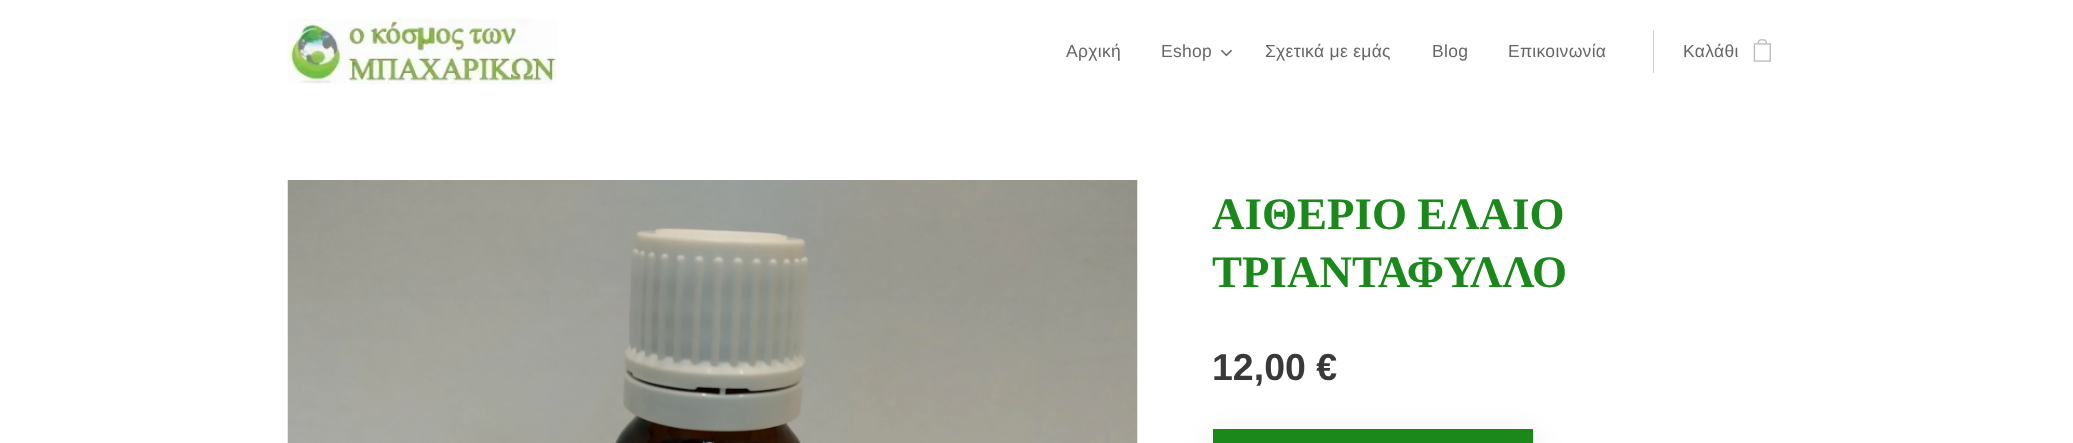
<svg xmlns="http://www.w3.org/2000/svg" width="2073" height="443">
	<rect width="100%" height="100%" fill="#FFFFFF" />
	<image x="287" y="18" width="270" height="66" href="assets/img1.png" />
	<g font-family="Liberation Sans" font-size="17.5" letter-spacing="0.3" fill="#666666">
		<text x="1066" y="57">Αρχική</text>
		<text x="1161" y="57">Eshop</text>
	</g>
	<image x="1220" y="49" width="12" height="8" href="assets/img2.png" />
	<g font-family="Liberation Sans" font-size="17.5" letter-spacing="0.3" fill="#666666">
		<text x="1265" y="57">Σχετικά με εμάς</text>
		<text x="1432" y="57">Blog</text>
		<text x="1508" y="57">Επικοινωνία</text>
	</g>
	<rect x="1653" y="30" width="1" height="43" fill="#D1D1D1" />
	<text x="1683" y="57" font-family="Liberation Sans" font-size="17.5" letter-spacing="0.3" fill="#666666">Καλάθι</text>
	<image x="1753" y="39" width="18" height="23" href="assets/img3.png" />
	<image x="287" y="180" width="851" height="263" href="assets/img4.png" />
	<g font-family="Liberation Serif" font-size="45" font-weight="700" fill="#1A881A">
		<text x="1212" y="229" word-spacing="-1">ΑΙΘΕΡΙΟ ΕΛΑΙΟ</text>
		<text x="1212" y="287">ΤΡΙΑΝΤΑΦΥΛΛΟ</text>
	</g>
	<text x="1212" y="380" font-family="Liberation Sans" font-size="37.5" font-weight="700" fill="#393939">12,00 €</text>
	<rect x="1213" y="439" width="320" height="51" fill="#000000" fill-opacity="0.1" filter="blur(15.5px)" />
	<rect x="1213" y="429" width="320" height="14" fill="#1A881A" />
</svg>
